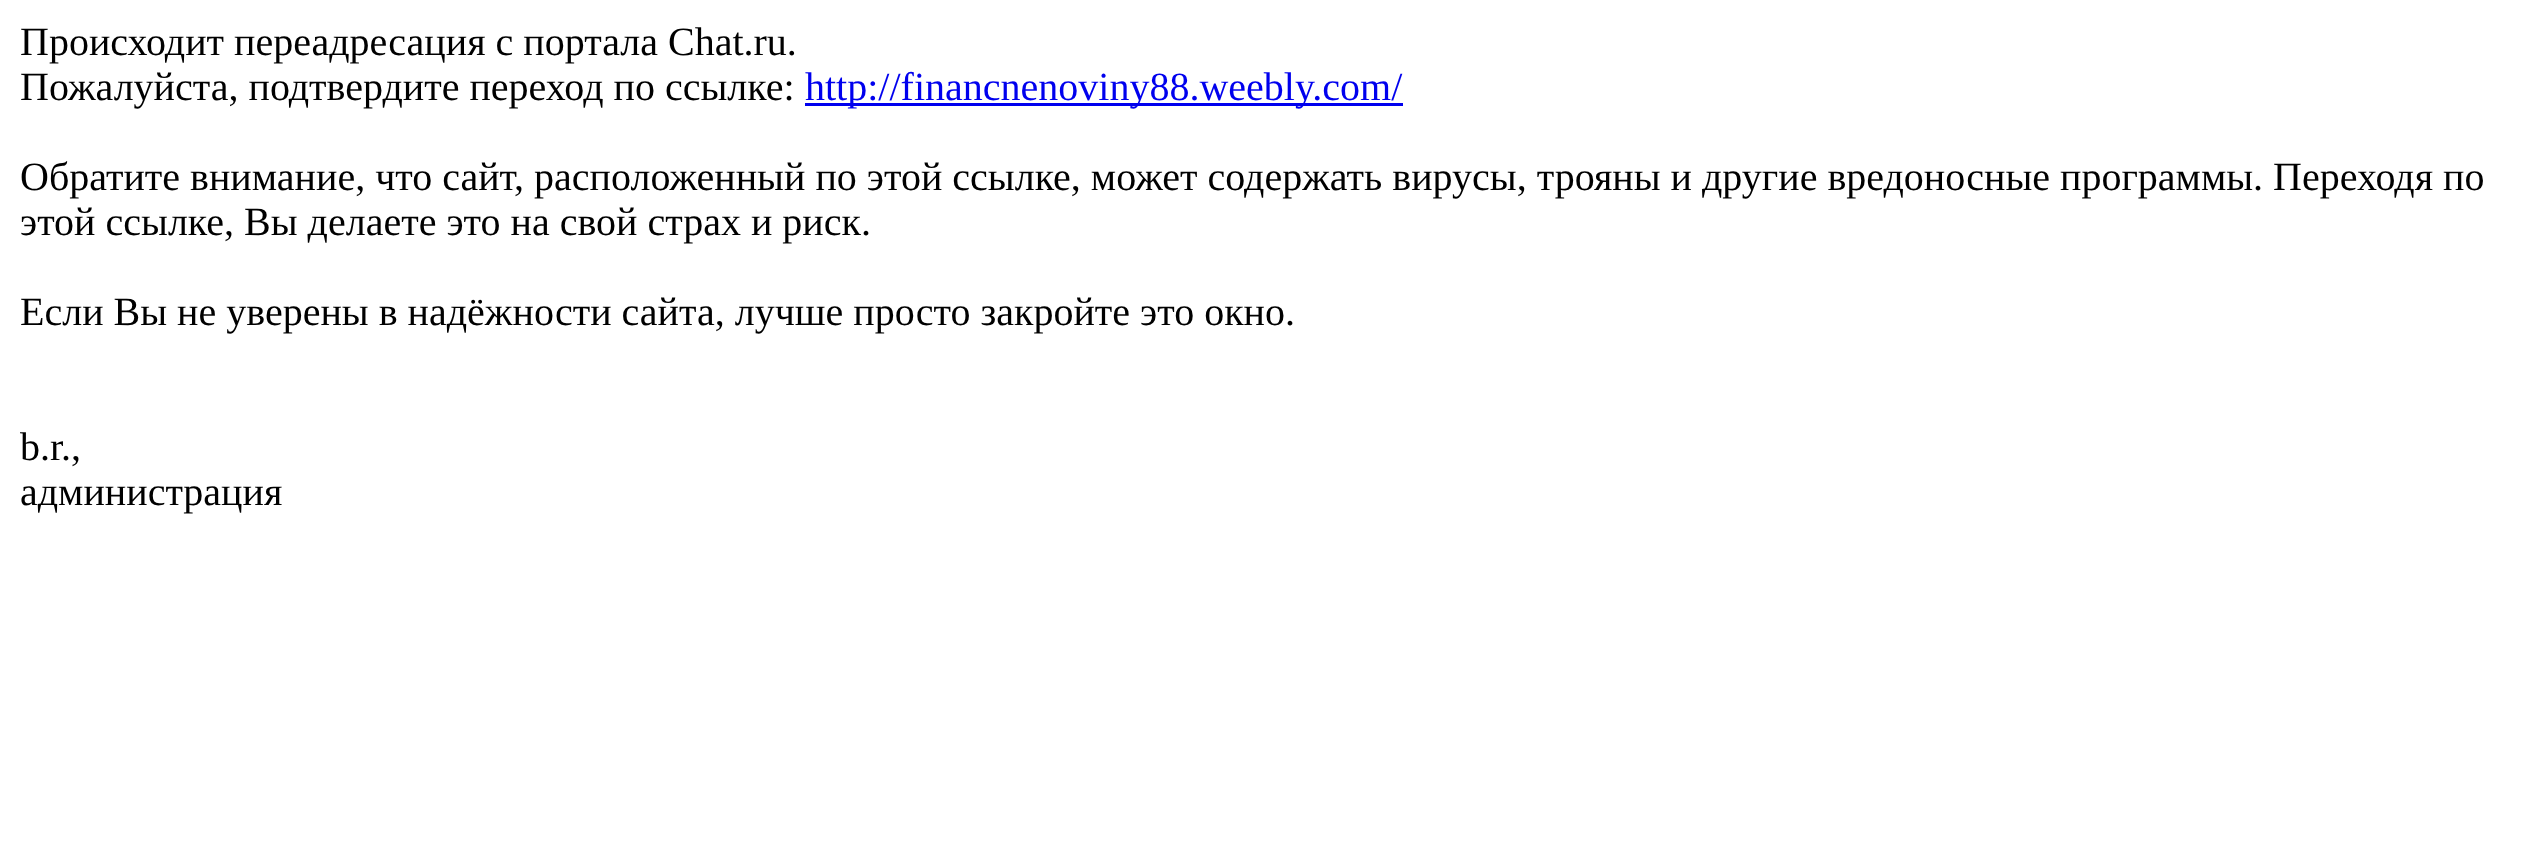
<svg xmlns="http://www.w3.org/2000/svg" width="2529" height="852">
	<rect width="100%" height="100%" fill="#FFFFFF" />
	<g font-family="Liberation Serif" font-size="40" fill="#000000">
		<text x="20" y="55">Происходит переадресация с портала Chat.ru.</text>
		<text x="20" y="100">Пожалуйста, подтвердите переход по ссылке:</text>
	</g>
	<rect x="805" y="103" width="598" height="3" fill="#0000EE" />
	<text x="805" y="100" font-family="Liberation Serif" font-size="40" fill="#0000EE">http://financnenoviny88.weebly.com/</text>
	<g font-family="Liberation Serif" font-size="40" fill="#000000">
		<text x="20" y="190">Обратите внимание, что сайт, расположенный по этой ссылке, может содержать вирусы, трояны и другие вредоносные программы. Переходя по</text>
		<text x="20" y="235">этой ссылке, Вы делаете это на свой страх и риск.</text>
		<text x="20" y="325">Если Вы не уверены в надёжности сайта, лучше просто закройте это окно.</text>
		<text x="20" y="460">b.r.,</text>
		<text x="20" y="505">администрация</text>
	</g>
</svg>
